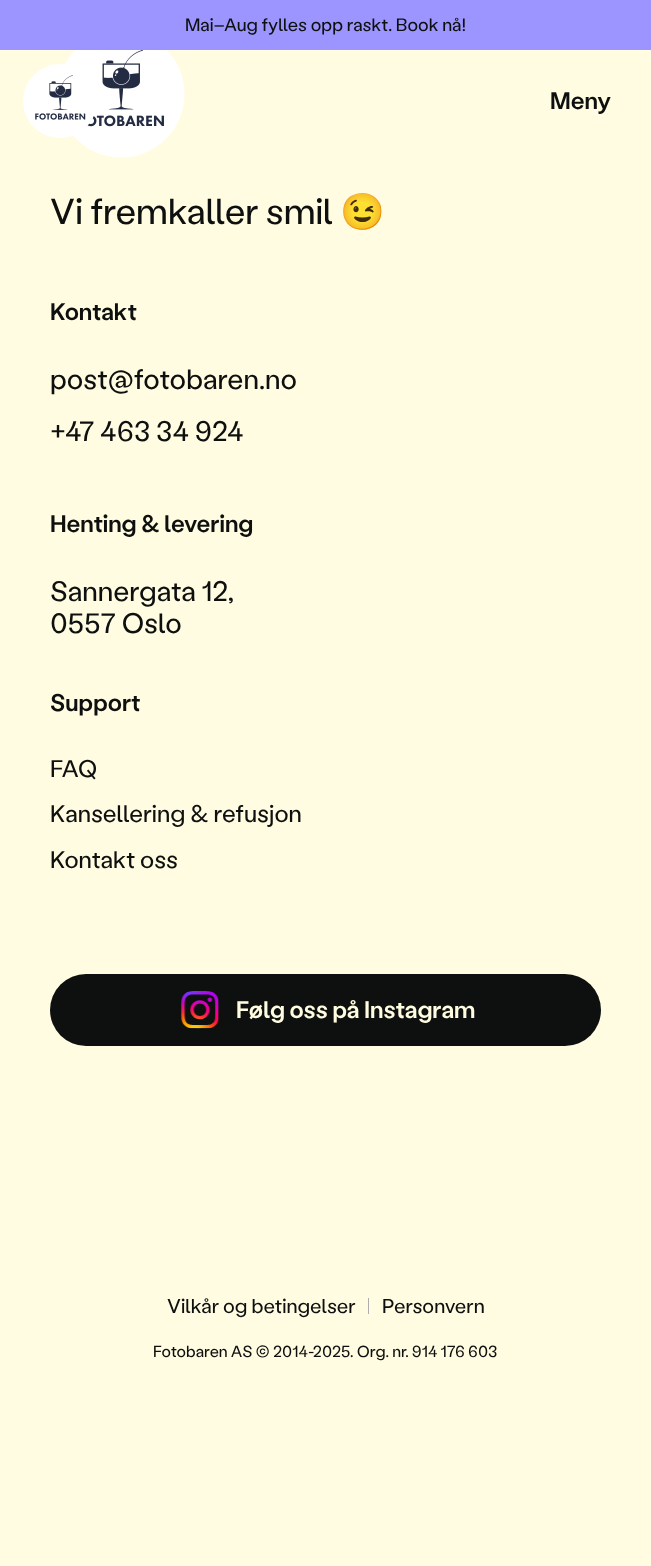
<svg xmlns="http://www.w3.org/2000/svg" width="651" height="1566">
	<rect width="100%" height="100%" fill="#FFFCE1" />
	<rect x="0" y="0" width="651" height="50" fill="#9D95FF" />
	<text x="185" y="31" font-family="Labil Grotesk" font-size="18" font-weight="500" fill="#0E100F">Mai–Aug fylles opp raskt. Book nå!</text>
	<image x="64" y="50" width="121" height="108" href="assets/img2.png" />
	<image x="23" y="64" width="71" height="74" href="assets/img1.png" />
	<text x="550" y="109" font-family="Labil Grotesk" font-size="24" font-weight="600" fill="#0E100F">Meny</text>
	<text x="50" y="224" font-family="Labil Grotesk" font-size="36" font-weight="500" fill="#0E100F">Vi fremkaller smil</text>
	<text x="340" y="224" font-family="Noto Color Emoji" font-size="36" fill="#0E100F">😉</text>
	<text x="50" y="320" font-family="Labil Grotesk" font-size="24" font-weight="600" fill="#0E100F">Kontakt</text>
	<g font-family="Labil Grotesk" font-size="28" font-weight="500" fill="#0E100F">
		<text x="50" y="389">post@fotobaren.no</text>
		<text x="50" y="441">+47 463 34 924</text>
	</g>
	<text x="50" y="532" font-family="Labil Grotesk" font-size="24" font-weight="600" fill="#0E100F">Henting &amp; levering</text>
	<g font-family="Labil Grotesk" font-size="28" font-weight="500" fill="#0E100F">
		<text x="50" y="601">Sannergata 12,</text>
		<text x="50" y="633">0557 Oslo</text>
	</g>
	<text x="50" y="711" font-family="Labil Grotesk" font-size="24" font-weight="600" fill="#0E100F">Support</text>
	<g font-family="Labil Grotesk" font-size="24" font-weight="500" fill="#0E100F">
		<text x="50" y="777">FAQ</text>
		<text x="50" y="822">Kansellering &amp; refusjon</text>
		<text x="50" y="868">Kontakt oss</text>
	</g>
	<rect x="50" y="974" width="551" height="72" rx="36" fill="#0E100F" />
	<image x="181" y="991" width="39" height="38" href="assets/img3.png" />
	<text x="236" y="1018" font-family="Labil Grotesk" font-size="24" font-weight="600" fill="#FFFCE1">Følg oss på Instagram</text>
	<text x="167" y="1313" font-family="Labil Grotesk" font-size="20" font-weight="500" fill="#0E100F">Vilkår og betingelser</text>
	<rect x="368" y="1298" width="1" height="16" fill="#ADADAD" />
	<text x="382" y="1313" font-family="Labil Grotesk" font-size="20" font-weight="500" fill="#0E100F">Personvern</text>
	<text x="153" y="1357" font-family="Labil Grotesk" font-size="16" font-weight="500" fill="#0E100F">Fotobaren AS © 2014-2025. Org. nr. 914 176 603</text>
</svg>
